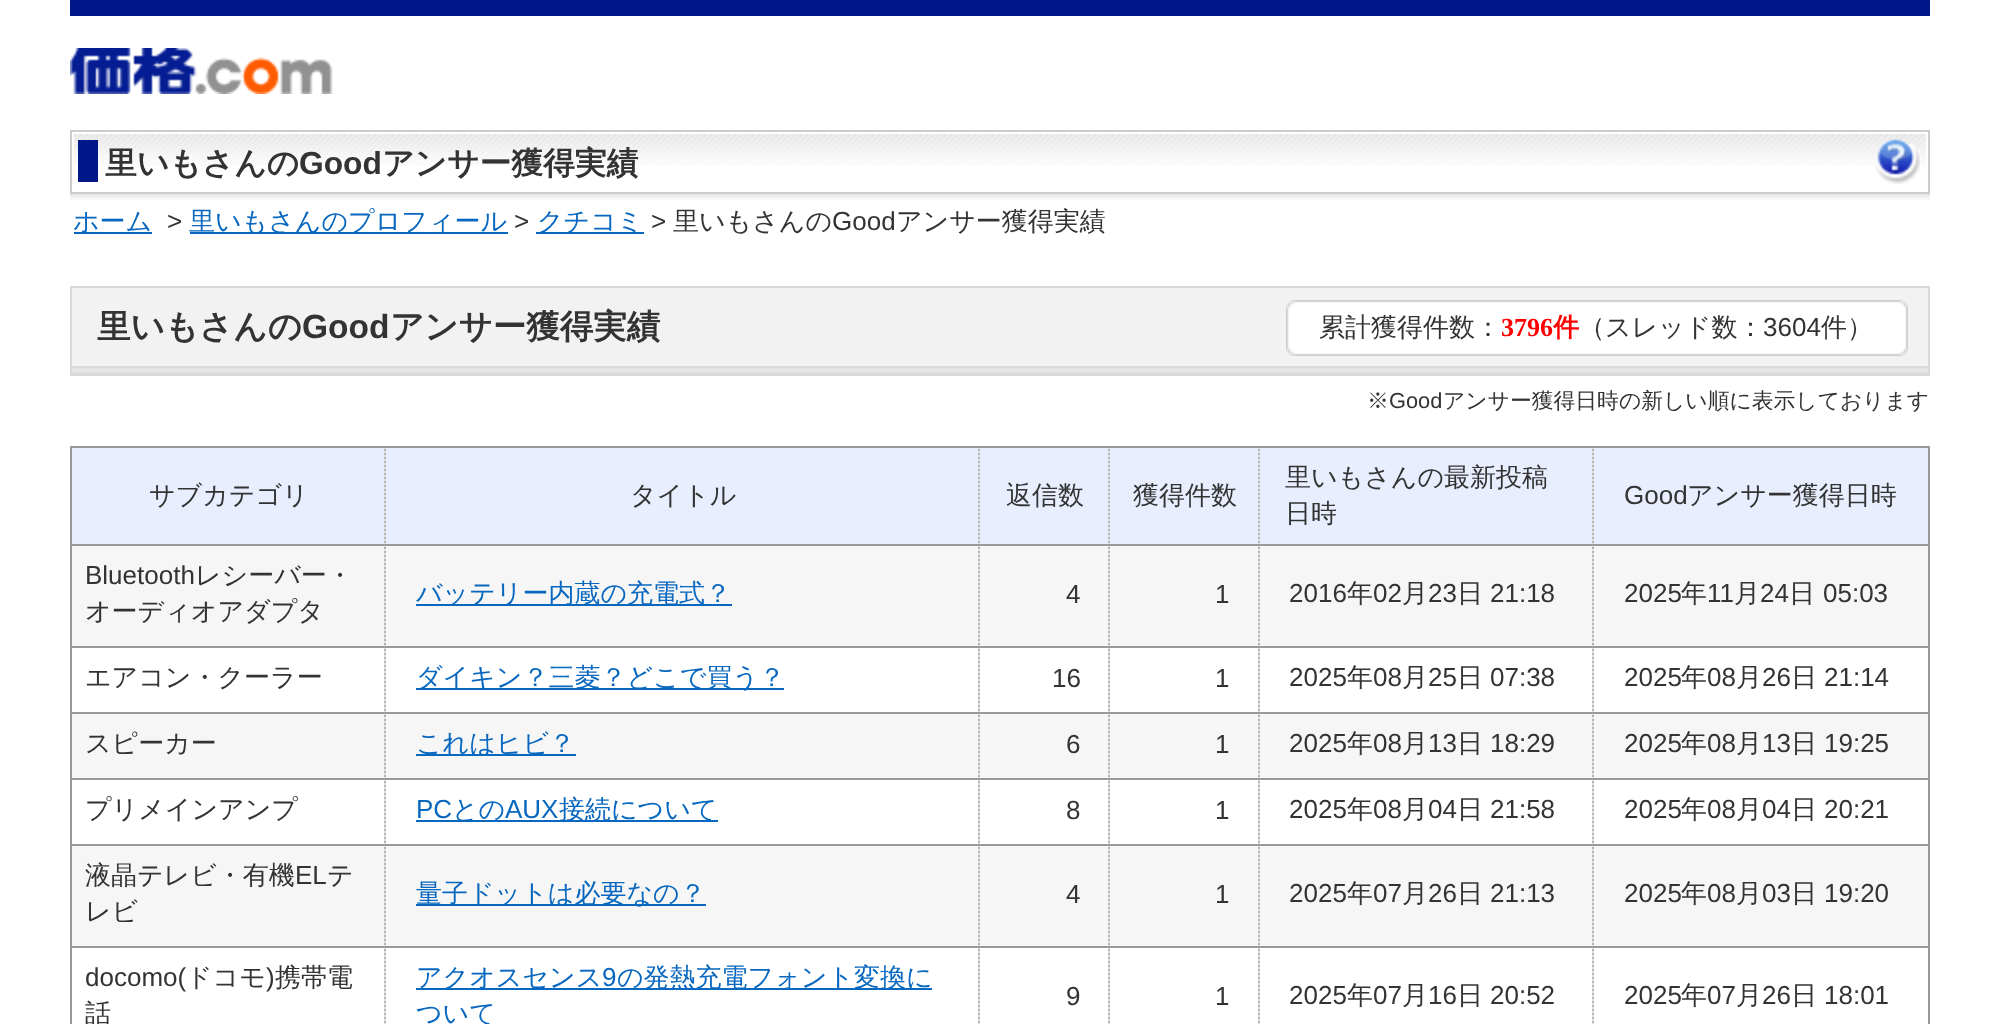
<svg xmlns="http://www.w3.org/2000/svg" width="1998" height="1024">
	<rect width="100%" height="100%" fill="#FFFFFF" />
	<rect x="70" y="0" width="1860" height="16" fill="#001789" />
	<image x="70" y="48" width="263" height="46" href="assets/img1.png" />
	<image x="70" y="194" width="1860" height="6" href="assets/img2.png" />
	<rect x="71" y="131" width="1858" height="62" fill="none" stroke="#CCCCCC" stroke-width="2" />
	<image x="74" y="134" width="1852" height="32" href="assets/img3.png" />
	<rect x="78" y="140" width="20" height="42" fill="#001789" />
	<text x="105" y="174" font-family="WenQuanYi Zen Hei" font-size="31.75" font-weight="700" fill="#333333">里いもさんの</text>
	<text x="299" y="174" font-family="Liberation Sans" font-size="31.75" font-weight="700" fill="#333333">Good</text>
	<text x="382" y="174" font-family="WenQuanYi Zen Hei" font-size="31.75" font-weight="700" fill="#333333">アンサー獲得実績</text>
	<image x="1875" y="139" width="45" height="45" href="assets/img4.png" />
	<rect x="74" y="232" width="78" height="2" fill="#0867BF" />
	<text x="73" y="230" font-family="WenQuanYi Zen Hei" font-size="26" font-weight="500" fill="#0867BF">ホーム</text>
	<text x="167" y="230" font-family="Liberation Sans" font-size="26" fill="#333333">&gt;</text>
	<rect x="190" y="232" width="318" height="2" fill="#0867BF" />
	<text x="189" y="230" font-family="WenQuanYi Zen Hei" font-size="26" font-weight="500" fill="#0867BF">里いもさんのプロフィール</text>
	<text x="514" y="230" font-family="Liberation Sans" font-size="26" fill="#333333">&gt;</text>
	<rect x="536" y="232" width="108" height="2" fill="#0867BF" />
	<text x="537" y="230" font-family="WenQuanYi Zen Hei" font-size="26" font-weight="500" fill="#0867BF">クチコミ</text>
	<text x="651" y="230" font-family="Liberation Sans" font-size="26" fill="#333333">&gt;</text>
	<text x="673" y="230" font-family="WenQuanYi Zen Hei" font-size="26" font-weight="500" fill="#333333">里いもさんの</text>
	<text x="832" y="230" font-family="Liberation Sans" font-size="26" fill="#333333">Good</text>
	<text x="896" y="230" font-family="WenQuanYi Zen Hei" font-size="26" font-weight="500" fill="#333333">アンサー獲得実績</text>
	<rect x="72" y="288" width="1856" height="78" fill="#F2F2F2" />
	<image x="72" y="366" width="1856" height="8" href="assets/img5.png" />
	<rect x="71" y="287" width="1858" height="88" fill="none" stroke="#D9D9D9" stroke-width="2" />
	<text x="97" y="338" font-family="WenQuanYi Zen Hei" font-size="33.5" font-weight="700" fill="#333333">里いもさんの</text>
	<text x="302" y="338" font-family="Liberation Sans" font-size="33.5" font-weight="700" fill="#333333">Good</text>
	<text x="390" y="338" font-family="WenQuanYi Zen Hei" font-size="33.5" font-weight="700" fill="#333333">アンサー獲得実績</text>
	<image x="1286" y="309" width="622" height="47" href="assets/img6.png" />
	<image x="1286" y="300" width="622" height="9" href="assets/img7.png" />
	<text x="1319" y="336" font-family="WenQuanYi Zen Hei" font-size="26" font-weight="500" fill="#333333">累計獲得件数：</text>
	<text x="1501" y="336" font-family="Liberation Serif" font-size="26" font-weight="700" fill="#FF0000">3796</text>
	<text x="1553" y="336" font-family="WenQuanYi Zen Hei" font-size="26" font-weight="700" fill="#FF0000">件</text>
	<text x="1579" y="336" font-family="WenQuanYi Zen Hei" font-size="26" font-weight="500" fill="#333333">（スレッド数：</text>
	<text x="1763" y="336" font-family="Liberation Sans" font-size="26" fill="#333333">3604</text>
	<text x="1821" y="336" font-family="WenQuanYi Zen Hei" font-size="26" font-weight="500" fill="#333333">件）</text>
	<text x="1367" y="408" font-family="WenQuanYi Zen Hei" font-size="21.8" font-weight="500" fill="#333333">※</text>
	<text x="1389" y="408" font-family="Liberation Sans" font-size="21.8" fill="#333333">Good</text>
	<text x="1443" y="408" font-family="WenQuanYi Zen Hei" font-size="21.8" font-weight="500" fill="#333333">アンサー獲得日時の新しい順に表示しております</text>
	<rect x="70" y="446" width="1860" height="2" fill="#999999" />
	<rect x="1928" y="446" width="2" height="578" fill="#999999" />
	<rect x="70" y="446" width="2" height="578" fill="#999999" />
	<rect x="72" y="448" width="312" height="96" fill="#E8EEFE" />
	<image x="384" y="448" width="2" height="96" href="assets/img8.png" />
	<text x="149" y="504" font-family="WenQuanYi Zen Hei" font-size="26" font-weight="500" fill="#333333">サブカテゴリ</text>
	<rect x="386" y="448" width="592" height="96" fill="#E8EEFE" />
	<image x="978" y="448" width="2" height="96" href="assets/img8.png" />
	<text x="630" y="504" font-family="WenQuanYi Zen Hei" font-size="26" font-weight="500" fill="#333333">タイトル</text>
	<rect x="980" y="448" width="128" height="96" fill="#E8EEFE" />
	<image x="1108" y="448" width="2" height="96" href="assets/img8.png" />
	<text x="1006" y="504" font-family="WenQuanYi Zen Hei" font-size="26" font-weight="500" fill="#333333">返信数</text>
	<rect x="1110" y="448" width="148" height="96" fill="#E8EEFE" />
	<image x="1258" y="448" width="2" height="96" href="assets/img8.png" />
	<text x="1133" y="504" font-family="WenQuanYi Zen Hei" font-size="26" font-weight="500" fill="#333333">獲得件数</text>
	<rect x="1260" y="448" width="332" height="96" fill="#E8EEFE" />
	<image x="1592" y="448" width="2" height="96" href="assets/img8.png" />
	<g font-family="WenQuanYi Zen Hei" font-size="26" font-weight="500" fill="#333333">
		<text x="1285" y="486">里いもさんの最新投稿</text>
		<text x="1285" y="522">日時</text>
	</g>
	<rect x="1594" y="448" width="334" height="96" fill="#E8EEFE" />
	<rect x="70" y="544" width="1860" height="2" fill="#999999" />
	<text x="1624" y="504" font-family="Liberation Sans" font-size="26" fill="#333333">Good</text>
	<text x="1687" y="504" font-family="WenQuanYi Zen Hei" font-size="26" font-weight="500" fill="#333333">アンサー獲得日時</text>
	<rect x="72" y="546" width="312" height="100" fill="#F6F6F6" />
	<image x="384" y="546" width="2" height="100" href="assets/img9.png" />
	<text x="85" y="584" font-family="Liberation Sans" font-size="26" fill="#333333">Bluetooth</text>
	<g font-family="WenQuanYi Zen Hei" font-size="26" font-weight="500" fill="#333333">
		<text x="195" y="584">レシーバー・</text>
		<text x="85" y="620">オーディオアダプタ</text>
	</g>
	<rect x="386" y="546" width="592" height="100" fill="#F6F6F6" />
	<image x="978" y="546" width="2" height="100" href="assets/img9.png" />
	<rect x="416" y="604" width="316" height="2" fill="#0867BF" />
	<text x="416" y="602" font-family="WenQuanYi Zen Hei" font-size="26" font-weight="500" fill="#0867BF">バッテリー内蔵の充電式？</text>
	<rect x="980" y="546" width="128" height="100" fill="#F6F6F6" />
	<image x="1108" y="546" width="2" height="100" href="assets/img9.png" />
	<text x="1066" y="603" font-family="Liberation Sans" font-size="26" fill="#333333">4</text>
	<rect x="1110" y="546" width="148" height="100" fill="#F6F6F6" />
	<image x="1258" y="546" width="2" height="100" href="assets/img9.png" />
	<text x="1215" y="603" font-family="Liberation Sans" font-size="26" fill="#333333">1</text>
	<rect x="1260" y="546" width="332" height="100" fill="#F6F6F6" />
	<image x="1592" y="546" width="2" height="100" href="assets/img9.png" />
	<text x="1289" y="602" font-family="Liberation Sans" font-size="26" fill="#333333">2016</text>
	<text x="1347" y="602" font-family="WenQuanYi Zen Hei" font-size="26" font-weight="500" fill="#333333">年</text>
	<text x="1373" y="602" font-family="Liberation Sans" font-size="26" fill="#333333">02</text>
	<text x="1402" y="602" font-family="WenQuanYi Zen Hei" font-size="26" font-weight="500" fill="#333333">月</text>
	<text x="1428" y="602" font-family="Liberation Sans" font-size="26" fill="#333333">23</text>
	<text x="1457" y="602" font-family="WenQuanYi Zen Hei" font-size="26" font-weight="500" fill="#333333">日</text>
	<text x="1490" y="602" font-family="Liberation Sans" font-size="26" fill="#333333">21:18</text>
	<rect x="1594" y="546" width="334" height="100" fill="#F6F6F6" />
	<rect x="70" y="646" width="1860" height="2" fill="#999999" />
	<text x="1624" y="602" font-family="Liberation Sans" font-size="26" fill="#333333">2025</text>
	<text x="1681" y="602" font-family="WenQuanYi Zen Hei" font-size="26" font-weight="500" fill="#333333">年</text>
	<text x="1707" y="602" font-family="Liberation Sans" font-size="26" fill="#333333">11</text>
	<text x="1734" y="602" font-family="WenQuanYi Zen Hei" font-size="26" font-weight="500" fill="#333333">月</text>
	<text x="1760" y="602" font-family="Liberation Sans" font-size="26" fill="#333333">24</text>
	<text x="1789" y="602" font-family="WenQuanYi Zen Hei" font-size="26" font-weight="500" fill="#333333">日</text>
	<text x="1823" y="602" font-family="Liberation Sans" font-size="26" fill="#333333">05:03</text>
	<image x="384" y="648" width="2" height="64" href="assets/img10.png" />
	<text x="85" y="686" font-family="WenQuanYi Zen Hei" font-size="26" font-weight="500" fill="#333333">エアコン・クーラー</text>
	<image x="978" y="648" width="2" height="64" href="assets/img10.png" />
	<rect x="416" y="688" width="368" height="2" fill="#0867BF" />
	<text x="416" y="686" font-family="WenQuanYi Zen Hei" font-size="26" font-weight="500" fill="#0867BF">ダイキン？三菱？どこで買う？</text>
	<image x="1108" y="648" width="2" height="64" href="assets/img10.png" />
	<text x="1052" y="687" font-family="Liberation Sans" font-size="26" fill="#333333">16</text>
	<image x="1258" y="648" width="2" height="64" href="assets/img10.png" />
	<text x="1215" y="687" font-family="Liberation Sans" font-size="26" fill="#333333">1</text>
	<image x="1592" y="648" width="2" height="64" href="assets/img10.png" />
	<text x="1289" y="686" font-family="Liberation Sans" font-size="26" fill="#333333">2025</text>
	<text x="1347" y="686" font-family="WenQuanYi Zen Hei" font-size="26" font-weight="500" fill="#333333">年</text>
	<text x="1373" y="686" font-family="Liberation Sans" font-size="26" fill="#333333">08</text>
	<text x="1402" y="686" font-family="WenQuanYi Zen Hei" font-size="26" font-weight="500" fill="#333333">月</text>
	<text x="1428" y="686" font-family="Liberation Sans" font-size="26" fill="#333333">25</text>
	<text x="1457" y="686" font-family="WenQuanYi Zen Hei" font-size="26" font-weight="500" fill="#333333">日</text>
	<text x="1490" y="686" font-family="Liberation Sans" font-size="26" fill="#333333">07:38</text>
	<rect x="70" y="712" width="1860" height="2" fill="#999999" />
	<text x="1624" y="686" font-family="Liberation Sans" font-size="26" fill="#333333">2025</text>
	<text x="1681" y="686" font-family="WenQuanYi Zen Hei" font-size="26" font-weight="500" fill="#333333">年</text>
	<text x="1707" y="686" font-family="Liberation Sans" font-size="26" fill="#333333">08</text>
	<text x="1736" y="686" font-family="WenQuanYi Zen Hei" font-size="26" font-weight="500" fill="#333333">月</text>
	<text x="1762" y="686" font-family="Liberation Sans" font-size="26" fill="#333333">26</text>
	<text x="1791" y="686" font-family="WenQuanYi Zen Hei" font-size="26" font-weight="500" fill="#333333">日</text>
	<text x="1824" y="686" font-family="Liberation Sans" font-size="26" fill="#333333">21:14</text>
	<rect x="72" y="714" width="312" height="64" fill="#F6F6F6" />
	<image x="384" y="714" width="2" height="64" href="assets/img10.png" />
	<text x="85" y="752" font-family="WenQuanYi Zen Hei" font-size="26" font-weight="500" fill="#333333">スピーカー</text>
	<rect x="386" y="714" width="592" height="64" fill="#F6F6F6" />
	<image x="978" y="714" width="2" height="64" href="assets/img10.png" />
	<rect x="416" y="754" width="160" height="2" fill="#0867BF" />
	<text x="416" y="752" font-family="WenQuanYi Zen Hei" font-size="26" font-weight="500" fill="#0867BF">これはヒビ？</text>
	<rect x="980" y="714" width="128" height="64" fill="#F6F6F6" />
	<image x="1108" y="714" width="2" height="64" href="assets/img10.png" />
	<text x="1066" y="753" font-family="Liberation Sans" font-size="26" fill="#333333">6</text>
	<rect x="1110" y="714" width="148" height="64" fill="#F6F6F6" />
	<image x="1258" y="714" width="2" height="64" href="assets/img10.png" />
	<text x="1215" y="753" font-family="Liberation Sans" font-size="26" fill="#333333">1</text>
	<rect x="1260" y="714" width="332" height="64" fill="#F6F6F6" />
	<image x="1592" y="714" width="2" height="64" href="assets/img10.png" />
	<text x="1289" y="752" font-family="Liberation Sans" font-size="26" fill="#333333">2025</text>
	<text x="1347" y="752" font-family="WenQuanYi Zen Hei" font-size="26" font-weight="500" fill="#333333">年</text>
	<text x="1373" y="752" font-family="Liberation Sans" font-size="26" fill="#333333">08</text>
	<text x="1402" y="752" font-family="WenQuanYi Zen Hei" font-size="26" font-weight="500" fill="#333333">月</text>
	<text x="1428" y="752" font-family="Liberation Sans" font-size="26" fill="#333333">13</text>
	<text x="1457" y="752" font-family="WenQuanYi Zen Hei" font-size="26" font-weight="500" fill="#333333">日</text>
	<text x="1490" y="752" font-family="Liberation Sans" font-size="26" fill="#333333">18:29</text>
	<rect x="1594" y="714" width="334" height="64" fill="#F6F6F6" />
	<rect x="70" y="778" width="1860" height="2" fill="#999999" />
	<text x="1624" y="752" font-family="Liberation Sans" font-size="26" fill="#333333">2025</text>
	<text x="1681" y="752" font-family="WenQuanYi Zen Hei" font-size="26" font-weight="500" fill="#333333">年</text>
	<text x="1707" y="752" font-family="Liberation Sans" font-size="26" fill="#333333">08</text>
	<text x="1736" y="752" font-family="WenQuanYi Zen Hei" font-size="26" font-weight="500" fill="#333333">月</text>
	<text x="1762" y="752" font-family="Liberation Sans" font-size="26" fill="#333333">13</text>
	<text x="1791" y="752" font-family="WenQuanYi Zen Hei" font-size="26" font-weight="500" fill="#333333">日</text>
	<text x="1824" y="752" font-family="Liberation Sans" font-size="26" fill="#333333">19:25</text>
	<image x="384" y="780" width="2" height="64" href="assets/img10.png" />
	<text x="85" y="818" font-family="WenQuanYi Zen Hei" font-size="26" font-weight="500" fill="#333333">プリメインアンプ</text>
	<image x="978" y="780" width="2" height="64" href="assets/img10.png" />
	<text x="416" y="818" font-family="Liberation Sans" font-size="26" fill="#0867BF">PC</text>
	<rect x="416" y="820" width="302" height="2" fill="#0867BF" />
	<text x="452" y="818" font-family="WenQuanYi Zen Hei" font-size="26" font-weight="500" fill="#0867BF">との</text>
	<text x="505" y="818" font-family="Liberation Sans" font-size="26" fill="#0867BF">AUX</text>
	<text x="559" y="818" font-family="WenQuanYi Zen Hei" font-size="26" font-weight="500" fill="#0867BF">接続について</text>
	<image x="1108" y="780" width="2" height="64" href="assets/img10.png" />
	<text x="1066" y="819" font-family="Liberation Sans" font-size="26" fill="#333333">8</text>
	<image x="1258" y="780" width="2" height="64" href="assets/img10.png" />
	<text x="1215" y="819" font-family="Liberation Sans" font-size="26" fill="#333333">1</text>
	<image x="1592" y="780" width="2" height="64" href="assets/img10.png" />
	<text x="1289" y="818" font-family="Liberation Sans" font-size="26" fill="#333333">2025</text>
	<text x="1347" y="818" font-family="WenQuanYi Zen Hei" font-size="26" font-weight="500" fill="#333333">年</text>
	<text x="1373" y="818" font-family="Liberation Sans" font-size="26" fill="#333333">08</text>
	<text x="1402" y="818" font-family="WenQuanYi Zen Hei" font-size="26" font-weight="500" fill="#333333">月</text>
	<text x="1428" y="818" font-family="Liberation Sans" font-size="26" fill="#333333">04</text>
	<text x="1457" y="818" font-family="WenQuanYi Zen Hei" font-size="26" font-weight="500" fill="#333333">日</text>
	<text x="1490" y="818" font-family="Liberation Sans" font-size="26" fill="#333333">21:58</text>
	<rect x="70" y="844" width="1860" height="2" fill="#999999" />
	<text x="1624" y="818" font-family="Liberation Sans" font-size="26" fill="#333333">2025</text>
	<text x="1681" y="818" font-family="WenQuanYi Zen Hei" font-size="26" font-weight="500" fill="#333333">年</text>
	<text x="1707" y="818" font-family="Liberation Sans" font-size="26" fill="#333333">08</text>
	<text x="1736" y="818" font-family="WenQuanYi Zen Hei" font-size="26" font-weight="500" fill="#333333">月</text>
	<text x="1762" y="818" font-family="Liberation Sans" font-size="26" fill="#333333">04</text>
	<text x="1791" y="818" font-family="WenQuanYi Zen Hei" font-size="26" font-weight="500" fill="#333333">日</text>
	<text x="1824" y="818" font-family="Liberation Sans" font-size="26" fill="#333333">20:21</text>
	<rect x="72" y="846" width="312" height="100" fill="#F6F6F6" />
	<image x="384" y="846" width="2" height="100" href="assets/img9.png" />
	<text x="85" y="884" font-family="WenQuanYi Zen Hei" font-size="26" font-weight="500" fill="#333333">液晶テレビ・有機</text>
	<text x="295" y="884" font-family="Liberation Sans" font-size="26" fill="#333333">EL</text>
	<g font-family="WenQuanYi Zen Hei" font-size="26" font-weight="500" fill="#333333">
		<text x="327" y="884">テ</text>
		<text x="85" y="920">レビ</text>
	</g>
	<rect x="386" y="846" width="592" height="100" fill="#F6F6F6" />
	<image x="978" y="846" width="2" height="100" href="assets/img9.png" />
	<rect x="416" y="904" width="290" height="2" fill="#0867BF" />
	<text x="416" y="902" font-family="WenQuanYi Zen Hei" font-size="26" font-weight="500" fill="#0867BF">量子ドットは必要なの？</text>
	<rect x="980" y="846" width="128" height="100" fill="#F6F6F6" />
	<image x="1108" y="846" width="2" height="100" href="assets/img9.png" />
	<text x="1066" y="903" font-family="Liberation Sans" font-size="26" fill="#333333">4</text>
	<rect x="1110" y="846" width="148" height="100" fill="#F6F6F6" />
	<image x="1258" y="846" width="2" height="100" href="assets/img9.png" />
	<text x="1215" y="903" font-family="Liberation Sans" font-size="26" fill="#333333">1</text>
	<rect x="1260" y="846" width="332" height="100" fill="#F6F6F6" />
	<image x="1592" y="846" width="2" height="100" href="assets/img9.png" />
	<text x="1289" y="902" font-family="Liberation Sans" font-size="26" fill="#333333">2025</text>
	<text x="1347" y="902" font-family="WenQuanYi Zen Hei" font-size="26" font-weight="500" fill="#333333">年</text>
	<text x="1373" y="902" font-family="Liberation Sans" font-size="26" fill="#333333">07</text>
	<text x="1402" y="902" font-family="WenQuanYi Zen Hei" font-size="26" font-weight="500" fill="#333333">月</text>
	<text x="1428" y="902" font-family="Liberation Sans" font-size="26" fill="#333333">26</text>
	<text x="1457" y="902" font-family="WenQuanYi Zen Hei" font-size="26" font-weight="500" fill="#333333">日</text>
	<text x="1490" y="902" font-family="Liberation Sans" font-size="26" fill="#333333">21:13</text>
	<rect x="1594" y="846" width="334" height="100" fill="#F6F6F6" />
	<rect x="70" y="946" width="1860" height="2" fill="#999999" />
	<text x="1624" y="902" font-family="Liberation Sans" font-size="26" fill="#333333">2025</text>
	<text x="1681" y="902" font-family="WenQuanYi Zen Hei" font-size="26" font-weight="500" fill="#333333">年</text>
	<text x="1707" y="902" font-family="Liberation Sans" font-size="26" fill="#333333">08</text>
	<text x="1736" y="902" font-family="WenQuanYi Zen Hei" font-size="26" font-weight="500" fill="#333333">月</text>
	<text x="1762" y="902" font-family="Liberation Sans" font-size="26" fill="#333333">03</text>
	<text x="1791" y="902" font-family="WenQuanYi Zen Hei" font-size="26" font-weight="500" fill="#333333">日</text>
	<text x="1824" y="902" font-family="Liberation Sans" font-size="26" fill="#333333">19:20</text>
	<image x="384" y="948" width="2" height="76" href="assets/img11.png" />
	<text x="85" y="986" font-family="Liberation Sans" font-size="26" fill="#333333">docomo(</text>
	<text x="186" y="986" font-family="WenQuanYi Zen Hei" font-size="26" font-weight="500" fill="#333333">ドコモ</text>
	<text x="266" y="986" font-family="Liberation Sans" font-size="26" fill="#333333">)</text>
	<g font-family="WenQuanYi Zen Hei" font-size="26" font-weight="500" fill="#333333">
		<text x="275" y="986">携帯電</text>
		<text x="85" y="1022">話</text>
	</g>
	<image x="978" y="948" width="2" height="76" href="assets/img11.png" />
	<rect x="416" y="988" width="516" height="2" fill="#0867BF" />
	<text x="416" y="986" font-family="WenQuanYi Zen Hei" font-size="26" font-weight="500" fill="#0867BF">アクオスセンス</text>
	<text x="602" y="986" font-family="Liberation Sans" font-size="26" fill="#0867BF">9</text>
	<g font-family="WenQuanYi Zen Hei" font-size="26" font-weight="500" fill="#0867BF">
		<text x="617" y="986">の発熱充電フォント変換に</text>
		<text x="416" y="1022">ついて</text>
	</g>
	<image x="1108" y="948" width="2" height="76" href="assets/img11.png" />
	<text x="1066" y="1005" font-family="Liberation Sans" font-size="26" fill="#333333">9</text>
	<image x="1258" y="948" width="2" height="76" href="assets/img11.png" />
	<text x="1215" y="1005" font-family="Liberation Sans" font-size="26" fill="#333333">1</text>
	<image x="1592" y="948" width="2" height="76" href="assets/img11.png" />
	<text x="1289" y="1004" font-family="Liberation Sans" font-size="26" fill="#333333">2025</text>
	<text x="1347" y="1004" font-family="WenQuanYi Zen Hei" font-size="26" font-weight="500" fill="#333333">年</text>
	<text x="1373" y="1004" font-family="Liberation Sans" font-size="26" fill="#333333">07</text>
	<text x="1402" y="1004" font-family="WenQuanYi Zen Hei" font-size="26" font-weight="500" fill="#333333">月</text>
	<text x="1428" y="1004" font-family="Liberation Sans" font-size="26" fill="#333333">16</text>
	<text x="1457" y="1004" font-family="WenQuanYi Zen Hei" font-size="26" font-weight="500" fill="#333333">日</text>
	<g font-family="Liberation Sans" font-size="26" fill="#333333">
		<text x="1490" y="1004">20:52</text>
		<text x="1624" y="1004">2025</text>
	</g>
	<text x="1681" y="1004" font-family="WenQuanYi Zen Hei" font-size="26" font-weight="500" fill="#333333">年</text>
	<text x="1707" y="1004" font-family="Liberation Sans" font-size="26" fill="#333333">07</text>
	<text x="1736" y="1004" font-family="WenQuanYi Zen Hei" font-size="26" font-weight="500" fill="#333333">月</text>
	<text x="1762" y="1004" font-family="Liberation Sans" font-size="26" fill="#333333">26</text>
	<text x="1791" y="1004" font-family="WenQuanYi Zen Hei" font-size="26" font-weight="500" fill="#333333">日</text>
	<text x="1824" y="1004" font-family="Liberation Sans" font-size="26" fill="#333333">18:01</text>
</svg>
